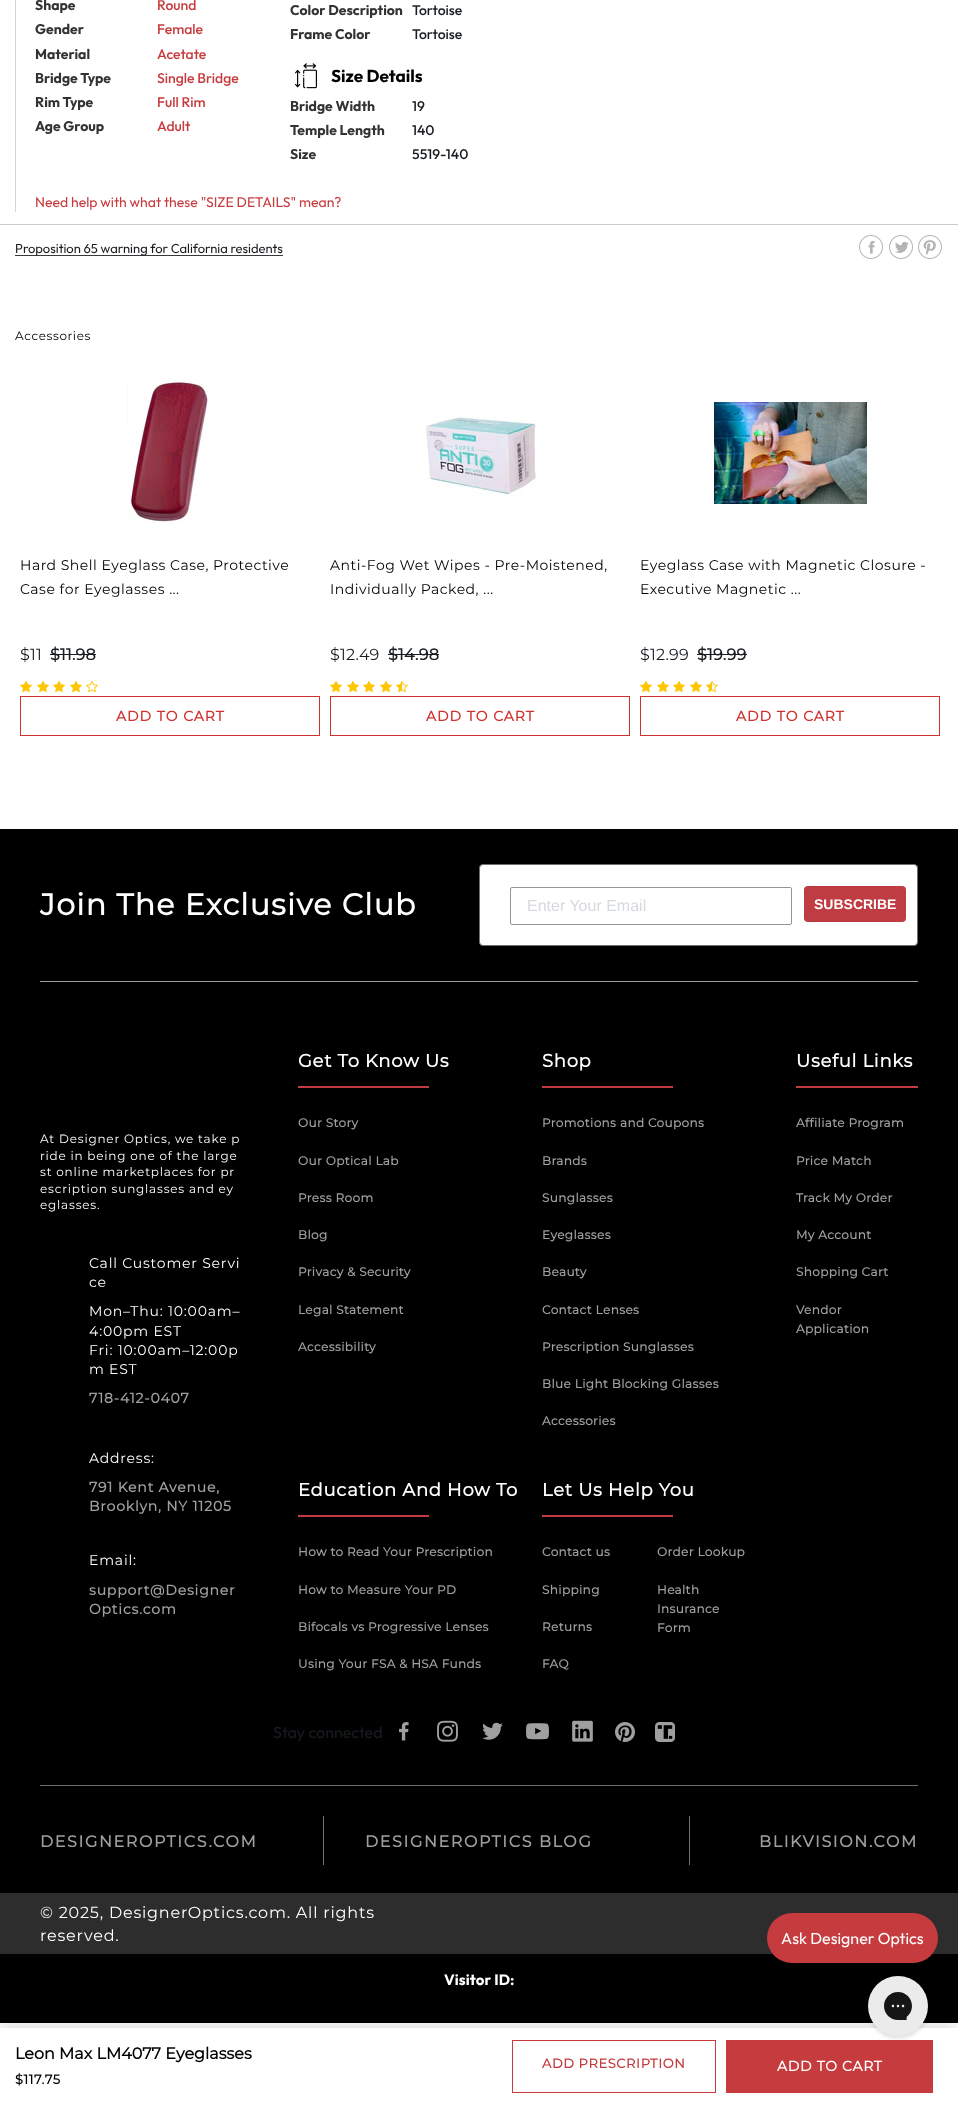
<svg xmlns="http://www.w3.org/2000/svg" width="958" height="2103">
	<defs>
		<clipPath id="clip1"><rect x="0" y="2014" width="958" height="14" /></clipPath>
	</defs>
	<rect width="100%" height="100%" fill="#FFFFFF" />
	<rect x="0" y="224" width="958" height="1" fill="#CCCCCC" />
	<rect x="15" y="0" width="1" height="212" fill="#D5D5D5" />
	<text x="35" y="10" font-family="Outfit" font-size="14" font-weight="700" fill="#333333">Shape</text>
	<text x="157" y="10" font-family="Outfit" font-size="14" font-weight="500" fill="#C63B3D">Round</text>
	<text x="35" y="34" font-family="Outfit" font-size="14" font-weight="700" fill="#333333">Gender</text>
	<text x="157" y="34" font-family="Outfit" font-size="14" font-weight="500" fill="#C63B3D">Female</text>
	<text x="35" y="59" font-family="Outfit" font-size="14" font-weight="700" fill="#333333">Material</text>
	<text x="157" y="59" font-family="Outfit" font-size="14" font-weight="500" fill="#C63B3D">Acetate</text>
	<text x="35" y="83" font-family="Outfit" font-size="14" font-weight="700" fill="#333333">Bridge Type</text>
	<text x="157" y="83" font-family="Outfit" font-size="14" font-weight="500" fill="#C63B3D">Single Bridge</text>
	<text x="35" y="107" font-family="Outfit" font-size="14" font-weight="700" fill="#333333">Rim Type</text>
	<text x="157" y="107" font-family="Outfit" font-size="14" font-weight="500" fill="#C63B3D">Full Rim</text>
	<text x="35" y="131" font-family="Outfit" font-size="14" font-weight="700" fill="#333333">Age Group</text>
	<text x="157" y="131" font-family="Outfit" font-size="14" font-weight="500" fill="#C63B3D">Adult</text>
	<text x="290" y="15" font-family="Outfit" font-size="14" font-weight="700" fill="#333333">Color Description</text>
	<text x="412" y="15" font-family="Outfit" font-size="14" font-weight="500" fill="#191D21">Tortoise</text>
	<text x="290" y="39" font-family="Outfit" font-size="14" font-weight="700" fill="#333333">Frame Color</text>
	<text x="412" y="39" font-family="Outfit" font-size="14" font-weight="500" fill="#191D21">Tortoise</text>
	<image x="295" y="63" width="22" height="26" href="assets/img1.png" />
	<text x="331" y="82" font-family="Outfit" font-size="17.25" font-weight="700" fill="#000000">Size Details</text>
	<text x="290" y="111" font-family="Outfit" font-size="14" font-weight="700" fill="#333333">Bridge Width</text>
	<text x="412" y="111" font-family="Outfit" font-size="14" font-weight="500" fill="#191D21">19</text>
	<text x="290" y="135" font-family="Outfit" font-size="14" font-weight="700" fill="#333333">Temple Length</text>
	<text x="412" y="135" font-family="Outfit" font-size="14" font-weight="500" fill="#191D21">140</text>
	<text x="290" y="159" font-family="Outfit" font-size="14" font-weight="700" fill="#333333">Size</text>
	<text x="412" y="159" font-family="Outfit" font-size="14" font-weight="500" fill="#191D21">5519-140</text>
	<text x="35" y="207" font-family="Outfit" font-size="14" fill="#C63B3D">Need help with what these "SIZE DETAILS" mean?</text>
	<rect x="15" y="255" width="268" height="1" fill="#393939" />
	<text x="15" y="253" font-family="Outfit" font-size="13" fill="#191D21">Proposition 65 warning for California residents</text>
	<image x="859" y="235" width="24" height="24" href="assets/img2.png" />
	<image x="889" y="235" width="24" height="24" href="assets/img3.png" />
	<image x="918" y="235" width="24" height="24" href="assets/img4.png" />
	<rect x="0" y="1954" width="958" height="69" fill="#000000" />
	<g clip-path="url(#clip1)">
		<rect x="0" y="2022" width="958" height="75" fill="#000000" fill-opacity="0.12" filter="blur(8.5px)" />
	</g>
	<text x="15" y="2059" font-family="Montserrat" font-size="16" font-weight="700" fill="#000000">Leon Max LM4077 Eyeglasses</text>
	<text x="15" y="2084" font-family="Montserrat" font-size="13" font-weight="700" letter-spacing="0.6" fill="#000000">$117.75</text>
	<rect x="512.5" y="2040.5" width="203" height="52" fill="none" stroke="#C73B3D" />
	<text x="542" y="2068" font-family="Montserrat" font-size="13" font-weight="700" letter-spacing="0.6" fill="#C63B3D">ADD PRESCRIPTION</text>
	<rect x="726" y="2040" width="207" height="53" fill="#C63B3D" />
	<text x="777" y="2071" font-family="Montserrat" font-size="14" font-weight="700" letter-spacing="0.7" fill="#FFFFFF">ADD TO CART</text>
	<text x="15" y="340" font-family="Montserrat" font-size="12" letter-spacing="0.6" fill="#000000">Accessories</text>
	<image x="127" y="380" width="84" height="143" href="assets/img5.png" />
	<g font-family="Montserrat" font-size="14" letter-spacing="0.5" fill="#000000">
		<text x="20" y="570">Hard Shell Eyeglass Case, Protective</text>
		<text x="20" y="594">Case for Eyeglasses ...</text>
	</g>
	<text x="20" y="660" font-family="Montserrat" font-size="16" letter-spacing="0.25" fill="#191D21">$11</text>
	<text x="50" y="660" font-family="Montserrat" font-size="16" font-weight="700" letter-spacing="0.25" fill="#191D21">$11.98</text>
	<rect x="50" y="654" width="46" height="1" fill="#191D21" />
	<image x="20" y="680" width="12" height="13" href="assets/img6.png" />
	<image x="37" y="680" width="12" height="13" href="assets/img6.png" />
	<image x="53" y="680" width="12" height="13" href="assets/img6.png" />
	<image x="70" y="680" width="12" height="13" href="assets/img6.png" />
	<image x="86" y="680" width="12" height="13" href="assets/img7.png" />
	<rect x="20.5" y="696.5" width="299" height="39" fill="none" stroke="#CE3330" />
	<text x="116" y="721" font-family="Montserrat" font-size="14" font-weight="700" letter-spacing="1" fill="#CE3330">ADD TO CART</text>
	<image x="426" y="416" width="110" height="80" href="assets/img8.png" />
	<g font-family="Montserrat" font-size="14" letter-spacing="0.5" fill="#000000">
		<text x="330" y="570">Anti-Fog Wet Wipes - Pre-Moistened,</text>
		<text x="330" y="594">Individually Packed, ...</text>
	</g>
	<text x="330" y="660" font-family="Montserrat" font-size="16" letter-spacing="0.25" fill="#191D21">$12.49</text>
	<text x="388" y="660" font-family="Montserrat" font-size="16" font-weight="700" letter-spacing="0.25" fill="#191D21">$14.98</text>
	<rect x="388" y="654" width="51" height="1" fill="#191D21" />
	<image x="330" y="680" width="12" height="13" href="assets/img6.png" />
	<image x="347" y="680" width="12" height="13" href="assets/img6.png" />
	<image x="363" y="680" width="12" height="13" href="assets/img6.png" />
	<image x="380" y="680" width="12" height="13" href="assets/img6.png" />
	<image x="396" y="680" width="12" height="13" href="assets/img9.png" />
	<rect x="330.5" y="696.5" width="299" height="39" fill="none" stroke="#CE3330" />
	<text x="426" y="721" font-family="Montserrat" font-size="14" font-weight="700" letter-spacing="1" fill="#CE3330">ADD TO CART</text>
	<image x="714" y="402" width="153" height="102" href="assets/img10.png" />
	<g font-family="Montserrat" font-size="14" letter-spacing="0.5" fill="#000000">
		<text x="640" y="570">Eyeglass Case with Magnetic Closure -</text>
		<text x="640" y="594">Executive Magnetic ...</text>
	</g>
	<text x="640" y="660" font-family="Montserrat" font-size="16" letter-spacing="0.25" fill="#191D21">$12.99</text>
	<text x="697" y="660" font-family="Montserrat" font-size="16" font-weight="700" letter-spacing="0.25" fill="#191D21">$19.99</text>
	<rect x="697" y="654" width="50" height="1" fill="#191D21" />
	<image x="640" y="680" width="12" height="13" href="assets/img6.png" />
	<image x="657" y="680" width="12" height="13" href="assets/img6.png" />
	<image x="673" y="680" width="12" height="13" href="assets/img6.png" />
	<image x="690" y="680" width="12" height="13" href="assets/img6.png" />
	<image x="706" y="680" width="12" height="13" href="assets/img9.png" />
	<rect x="640.5" y="696.5" width="299" height="39" fill="none" stroke="#CE3330" />
	<text x="736" y="721" font-family="Montserrat" font-size="14" font-weight="700" letter-spacing="1" fill="#CE3330">ADD TO CART</text>
	<rect x="0" y="829" width="958" height="1064" fill="#000000" />
	<text x="40" y="915" font-family="Montserrat" font-size="30" font-weight="700" letter-spacing="1.25" fill="#FFFFFF">Join The Exclusive Club</text>
	<rect x="479.5" y="864.5" width="438" height="81" rx="3.5" fill="#FFFFFF" stroke="#707070" />
	<rect x="510.5" y="887.5" width="281" height="37" rx="1.5" fill="none" stroke="#949596" />
	<text x="527" y="911" font-family="Liberation Sans" font-size="16" fill="#D6D9DD">Enter Your Email</text>
	<rect x="804" y="886" width="102" height="36" rx="4" fill="#C03C43" />
	<text x="814" y="909" font-family="Liberation Sans" font-size="14" font-weight="700" fill="#FFFFFF">SUBSCRIBE</text>
	<rect x="40" y="981" width="878" height="1" fill="#9F9F9F" />
	<g font-family="Montserrat" font-size="12" letter-spacing="0.8" fill="#FFFFFF">
		<text x="40" y="1143">At Designer Optics, we take p</text>
		<text x="40" y="1160">ride in being one of the large</text>
		<text x="40" y="1176">st online marketplaces for pr</text>
		<text x="40" y="1193">escription sunglasses and ey</text>
		<text x="40" y="1209">eglasses.</text>
	</g>
	<g font-family="Montserrat" font-size="14" letter-spacing="0.8" fill="#FFFFFF">
		<text x="89" y="1268">Call Customer Servi</text>
		<text x="89" y="1287">ce</text>
		<text x="89" y="1316">Mon–Thu: 10:00am–</text>
		<text x="89" y="1336">4:00pm EST</text>
		<text x="89" y="1355">Fri: 10:00am–12:00p</text>
		<text x="89" y="1374">m EST</text>
	</g>
	<text x="89" y="1403" font-family="Montserrat" font-size="14" font-weight="700" letter-spacing="0.8" fill="#9F9F9F">718-412-0407</text>
	<text x="89" y="1463" font-family="Montserrat" font-size="14" letter-spacing="0.8" fill="#FFFFFF">Address:</text>
	<g font-family="Montserrat" font-size="14" font-weight="700" letter-spacing="0.8" fill="#9F9F9F">
		<text x="89" y="1492">791 Kent Avenue,</text>
		<text x="89" y="1511">Brooklyn, NY 11205</text>
	</g>
	<text x="89" y="1565" font-family="Montserrat" font-size="14" letter-spacing="0.8" fill="#FFFFFF">Email:</text>
	<g font-family="Montserrat" font-size="14" font-weight="700" letter-spacing="0.8" fill="#9F9F9F">
		<text x="89" y="1595">support@Designer</text>
		<text x="89" y="1614">Optics.com</text>
	</g>
	<text x="298" y="1067" font-family="Montserrat" font-size="18" font-weight="700" letter-spacing="0.7" fill="#FFFFFF">Get To Know Us</text>
	<rect x="298" y="1086" width="131" height="2" fill="#C03C43" />
	<g font-family="Montserrat" font-size="12" font-weight="700" letter-spacing="0.4" fill="#9F9F9F">
		<text x="298" y="1127">Our Story</text>
		<text x="298" y="1165">Our Optical Lab</text>
		<text x="298" y="1202">Press Room</text>
		<text x="298" y="1239">Blog</text>
		<text x="298" y="1276">Privacy &amp; Security</text>
		<text x="298" y="1314">Legal Statement</text>
		<text x="298" y="1351">Accessibility</text>
	</g>
	<text x="542" y="1067" font-family="Montserrat" font-size="18" font-weight="700" letter-spacing="0.7" fill="#FFFFFF">Shop</text>
	<rect x="542" y="1086" width="131" height="2" fill="#C03C43" />
	<g font-family="Montserrat" font-size="12" font-weight="700" letter-spacing="0.4" fill="#9F9F9F">
		<text x="542" y="1127">Promotions and Coupons</text>
		<text x="542" y="1165">Brands</text>
		<text x="542" y="1202">Sunglasses</text>
		<text x="542" y="1239">Eyeglasses</text>
		<text x="542" y="1276">Beauty</text>
		<text x="542" y="1314">Contact Lenses</text>
		<text x="542" y="1351">Prescription Sunglasses</text>
		<text x="542" y="1388">Blue Light Blocking Glasses</text>
		<text x="542" y="1425">Accessories</text>
	</g>
	<text x="796" y="1067" font-family="Montserrat" font-size="18" font-weight="700" letter-spacing="0.7" fill="#FFFFFF">Useful Links</text>
	<rect x="796" y="1086" width="122" height="2" fill="#C03C43" />
	<g font-family="Montserrat" font-size="12" font-weight="700" letter-spacing="0.4" fill="#9F9F9F">
		<text x="796" y="1127">Affiliate Program</text>
		<text x="796" y="1165">Price Match</text>
		<text x="796" y="1202">Track My Order</text>
		<text x="796" y="1239">My Account</text>
		<text x="796" y="1276">Shopping Cart</text>
		<text x="796" y="1314">Vendor</text>
		<text x="796" y="1333">Application</text>
	</g>
	<text x="298" y="1496" font-family="Montserrat" font-size="18" font-weight="700" letter-spacing="0.7" fill="#FFFFFF">Education And How To</text>
	<rect x="298" y="1515" width="131" height="2" fill="#C03C43" />
	<g font-family="Montserrat" font-size="12" font-weight="700" letter-spacing="0.4" fill="#9F9F9F">
		<text x="298" y="1556">How to Read Your Prescription</text>
		<text x="298" y="1594">How to Measure Your PD</text>
		<text x="298" y="1631">Bifocals vs Progressive Lenses</text>
		<text x="298" y="1668">Using Your FSA &amp; HSA Funds</text>
	</g>
	<text x="542" y="1496" font-family="Montserrat" font-size="18" font-weight="700" letter-spacing="0.7" fill="#FFFFFF">Let Us Help You</text>
	<rect x="542" y="1515" width="131" height="2" fill="#C03C43" />
	<g font-family="Montserrat" font-size="12" font-weight="700" letter-spacing="0.4" fill="#9F9F9F">
		<text x="542" y="1556">Contact us</text>
		<text x="657" y="1556">Order Lookup</text>
		<text x="542" y="1594">Shipping</text>
		<text x="657" y="1594">Health</text>
		<text x="657" y="1613">Insurance</text>
		<text x="657" y="1632">Form</text>
		<text x="542" y="1631">Returns</text>
		<text x="542" y="1668">FAQ</text>
	</g>
	<text x="273" y="1738" font-family="Outfit" font-size="16" fill="#191D21">Stay connected</text>
	<image x="399" y="1722" width="10" height="19" href="assets/img11.png" />
	<image x="437" y="1720" width="21" height="22" href="assets/img12.png" />
	<image x="482" y="1722" width="21" height="18" href="assets/img13.png" />
	<image x="526" y="1723" width="23" height="17" href="assets/img14.png" />
	<image x="572" y="1720" width="21" height="22" href="assets/img15.png" />
	<image x="615" y="1722" width="20" height="20" href="assets/img16.png" />
	<image x="655" y="1722" width="20" height="20" href="assets/img17.png" />
	<rect x="40" y="1785" width="878" height="1" fill="#707070" />
	<text x="40" y="1847" font-family="Montserrat" font-size="16" font-weight="700" letter-spacing="1.6" fill="#9F9F9F">DESIGNEROPTICS.COM</text>
	<rect x="323" y="1816" width="1" height="49" fill="#707070" />
	<text x="365" y="1847" font-family="Montserrat" font-size="16" font-weight="700" letter-spacing="1.6" fill="#9F9F9F">DESIGNEROPTICS BLOG</text>
	<rect x="689" y="1816" width="1" height="49" fill="#707070" />
	<text x="759" y="1847" font-family="Montserrat" font-size="16" font-weight="700" letter-spacing="1.6" fill="#9F9F9F">BLIKVISION.COM</text>
	<rect x="0" y="1893" width="958" height="61" fill="#2D2D2D" />
	<g font-family="Montserrat" font-size="16" letter-spacing="0.8" fill="#FFFFFF">
		<text x="40" y="1918">© 2025, DesignerOptics.com. All rights</text>
		<text x="40" y="1941">reserved.</text>
	</g>
	<text x="444" y="1985" font-family="Outfit" font-size="15" font-weight="700" letter-spacing="0.1" fill="#FFFFFF">Visitor ID:</text>
	<rect x="767" y="1913" width="171" height="50" rx="25" fill="#C63B3D" />
	<text x="781" y="1944" font-family="Outfit" font-size="16" fill="#FFFFFF">Ask Designer Optics</text>
	<image x="868" y="1976" width="60" height="64" href="assets/img18.png" />
</svg>
